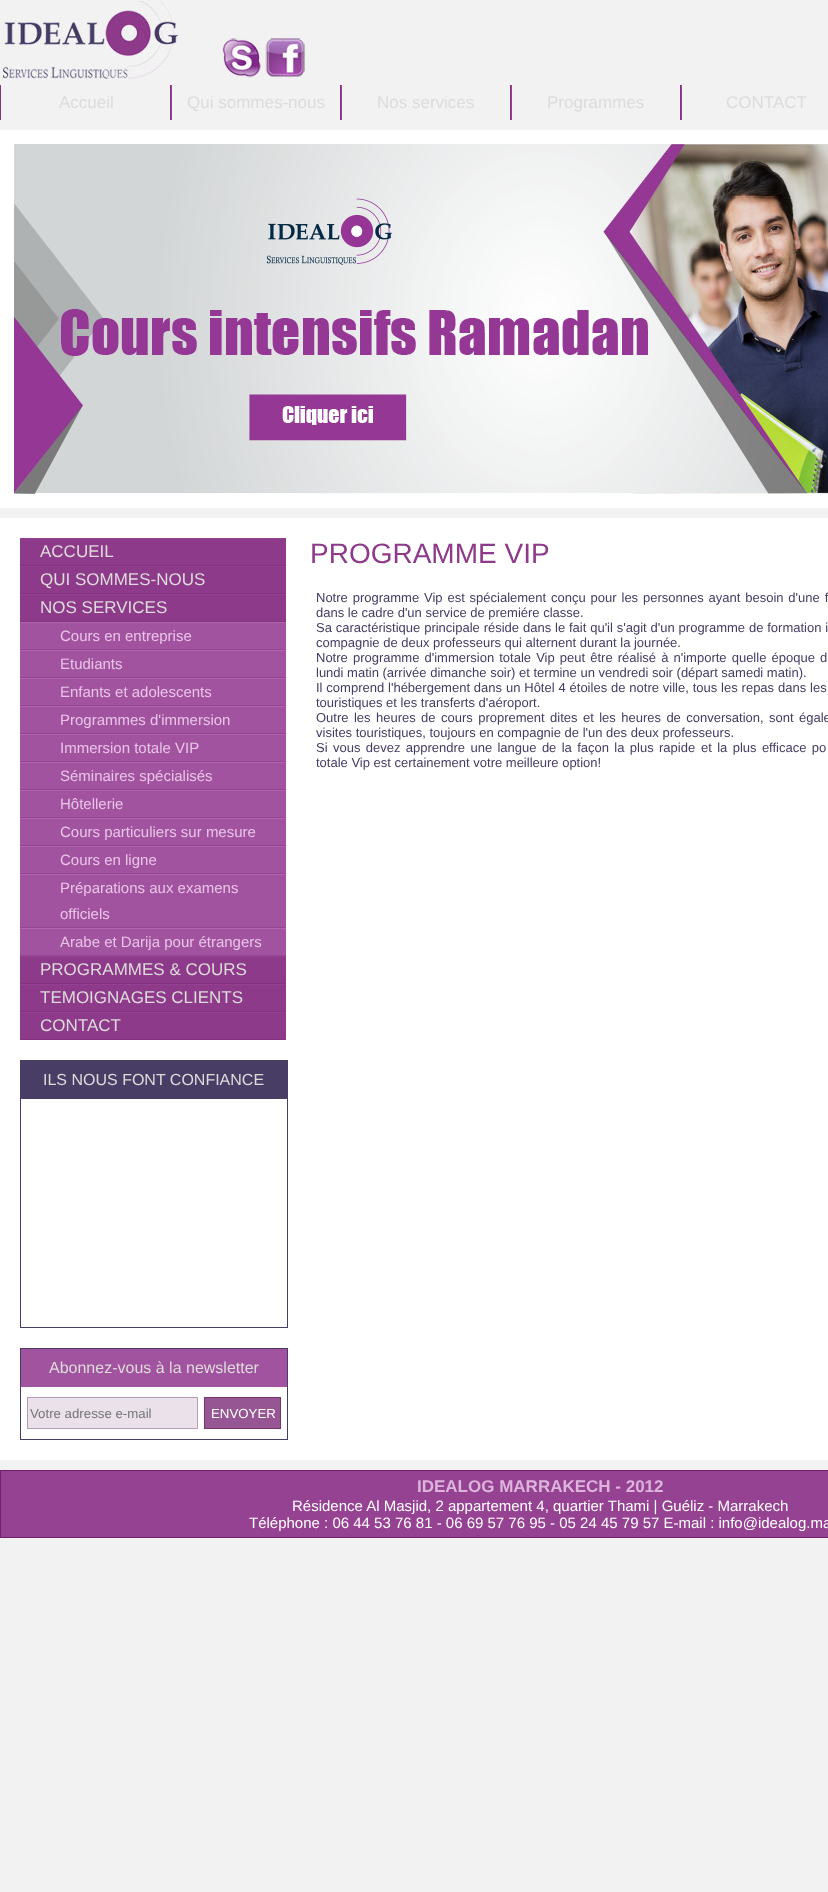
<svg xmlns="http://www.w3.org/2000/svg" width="828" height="1892">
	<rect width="100%" height="100%" fill="#F2F2F2" />
	<image x="1" y="1" width="180" height="78" href="assets/img1.png" />
	<image x="222" y="38" width="39" height="40" href="assets/img2.png" />
	<image x="265" y="38" width="40" height="40" href="assets/img3.png" />
	<rect x="171" y="85" width="1" height="35" fill="#934390" />
	<rect x="0" y="85" width="1" height="35" fill="#833480" />
	<text x="59" y="108" font-family="Liberation Sans" font-size="17" fill="#DEDCDA">Accueil</text>
	<rect x="341" y="85" width="1" height="35" fill="#934390" />
	<rect x="170" y="85" width="1" height="35" fill="#833480" />
	<text x="187" y="108" font-family="Liberation Sans" font-size="17" fill="#DEDCDA">Qui sommes-nous</text>
	<rect x="511" y="85" width="1" height="35" fill="#934390" />
	<rect x="340" y="85" width="1" height="35" fill="#833480" />
	<text x="377" y="108" font-family="Liberation Sans" font-size="17" fill="#DEDCDA">Nos services</text>
	<rect x="681" y="85" width="1" height="35" fill="#934390" />
	<rect x="510" y="85" width="1" height="35" fill="#833480" />
	<text x="547" y="108" font-family="Liberation Sans" font-size="17" fill="#DEDCDA">Programmes</text>
	<rect x="680" y="85" width="1" height="35" fill="#833480" />
	<text x="726" y="108" font-family="Liberation Sans" font-size="17" fill="#DEDCDA">CONTACT</text>
	<rect x="0" y="130" width="828" height="378" fill="#FFFFFF" />
	<image x="14" y="144" width="814" height="350" href="assets/img4.png" />
	<rect x="0" y="518" width="828" height="942" fill="#FFFFFF" />
	<rect x="20" y="539" width="266" height="26" fill="#8E3A8B" />
	<rect x="20" y="538" width="266" height="1" fill="#954092" />
	<rect x="20" y="565" width="266" height="1" fill="#843381" />
	<text x="40" y="557" font-family="Liberation Sans" font-size="17" fill="#DEDCDA">ACCUEIL</text>
	<rect x="20" y="567" width="266" height="26" fill="#8E3A8B" />
	<rect x="20" y="566" width="266" height="1" fill="#954092" />
	<rect x="20" y="593" width="266" height="1" fill="#843381" />
	<text x="40" y="585" font-family="Liberation Sans" font-size="17" fill="#DEDCDA">QUI SOMMES-NOUS</text>
	<rect x="20" y="595" width="266" height="26" fill="#8E3A8B" />
	<rect x="20" y="594" width="266" height="1" fill="#954092" />
	<rect x="20" y="621" width="266" height="1" fill="#843381" />
	<text x="40" y="613" font-family="Liberation Sans" font-size="17" fill="#DEDCDA">NOS SERVICES</text>
	<rect x="20" y="623" width="266" height="26" fill="#A2539F" />
	<rect x="20" y="622" width="266" height="1" fill="#AE65AB" />
	<rect x="20" y="649" width="266" height="1" fill="#964593" />
	<text x="60" y="641" font-family="Liberation Sans" font-size="15" fill="#E9C4E8">Cours en entreprise</text>
	<rect x="20" y="651" width="266" height="26" fill="#A2539F" />
	<rect x="20" y="650" width="266" height="1" fill="#AE65AB" />
	<rect x="20" y="677" width="266" height="1" fill="#964593" />
	<text x="60" y="669" font-family="Liberation Sans" font-size="15" fill="#E9C4E8">Etudiants</text>
	<rect x="20" y="679" width="266" height="26" fill="#A2539F" />
	<rect x="20" y="678" width="266" height="1" fill="#AE65AB" />
	<rect x="20" y="705" width="266" height="1" fill="#964593" />
	<text x="60" y="697" font-family="Liberation Sans" font-size="15" fill="#E9C4E8">Enfants et adolescents</text>
	<rect x="20" y="707" width="266" height="26" fill="#A2539F" />
	<rect x="20" y="706" width="266" height="1" fill="#AE65AB" />
	<rect x="20" y="733" width="266" height="1" fill="#964593" />
	<text x="60" y="725" font-family="Liberation Sans" font-size="15" fill="#E9C4E8">Programmes d'immersion</text>
	<rect x="20" y="735" width="266" height="26" fill="#A2539F" />
	<rect x="20" y="734" width="266" height="1" fill="#AE65AB" />
	<rect x="20" y="761" width="266" height="1" fill="#964593" />
	<text x="60" y="753" font-family="Liberation Sans" font-size="15" fill="#E9C4E8">Immersion totale VIP</text>
	<rect x="20" y="763" width="266" height="26" fill="#A2539F" />
	<rect x="20" y="762" width="266" height="1" fill="#AE65AB" />
	<rect x="20" y="789" width="266" height="1" fill="#964593" />
	<text x="60" y="781" font-family="Liberation Sans" font-size="15" fill="#E9C4E8">Séminaires spécialisés</text>
	<rect x="20" y="791" width="266" height="26" fill="#A2539F" />
	<rect x="20" y="790" width="266" height="1" fill="#AE65AB" />
	<rect x="20" y="817" width="266" height="1" fill="#964593" />
	<text x="60" y="809" font-family="Liberation Sans" font-size="15" fill="#E9C4E8">Hôtellerie</text>
	<rect x="20" y="819" width="266" height="26" fill="#A2539F" />
	<rect x="20" y="818" width="266" height="1" fill="#AE65AB" />
	<rect x="20" y="845" width="266" height="1" fill="#964593" />
	<text x="60" y="837" font-family="Liberation Sans" font-size="15" fill="#E9C4E8">Cours particuliers sur mesure</text>
	<rect x="20" y="847" width="266" height="26" fill="#A2539F" />
	<rect x="20" y="846" width="266" height="1" fill="#AE65AB" />
	<rect x="20" y="873" width="266" height="1" fill="#964593" />
	<text x="60" y="865" font-family="Liberation Sans" font-size="15" fill="#E9C4E8">Cours en ligne</text>
	<rect x="20" y="875" width="266" height="52" fill="#A2539F" />
	<rect x="20" y="874" width="266" height="1" fill="#AE65AB" />
	<rect x="20" y="927" width="266" height="1" fill="#964593" />
	<g font-family="Liberation Sans" font-size="15" fill="#E9C4E8">
		<text x="60" y="893">Préparations aux examens</text>
		<text x="60" y="919">officiels</text>
	</g>
	<rect x="20" y="929" width="266" height="26" fill="#A2539F" />
	<rect x="20" y="928" width="266" height="1" fill="#AE65AB" />
	<rect x="20" y="955" width="266" height="1" fill="#964593" />
	<text x="60" y="947" font-family="Liberation Sans" font-size="15" fill="#E9C4E8">Arabe et Darija pour étrangers</text>
	<rect x="20" y="957" width="266" height="26" fill="#8E3A8B" />
	<rect x="20" y="956" width="266" height="1" fill="#954092" />
	<rect x="20" y="983" width="266" height="1" fill="#843381" />
	<text x="40" y="975" font-family="Liberation Sans" font-size="17" fill="#DEDCDA">PROGRAMMES &amp; COURS</text>
	<rect x="20" y="985" width="266" height="26" fill="#8E3A8B" />
	<rect x="20" y="984" width="266" height="1" fill="#954092" />
	<rect x="20" y="1011" width="266" height="1" fill="#843381" />
	<text x="40" y="1003" font-family="Liberation Sans" font-size="17" fill="#DEDCDA">TEMOIGNAGES CLIENTS</text>
	<rect x="20" y="1013" width="266" height="26" fill="#8E3A8B" />
	<rect x="20" y="1012" width="266" height="1" fill="#954092" />
	<rect x="20" y="1039" width="266" height="1" fill="#843381" />
	<text x="40" y="1031" font-family="Liberation Sans" font-size="17" fill="#DEDCDA">CONTACT</text>
	<rect x="20.5" y="1060.5" width="267" height="267" fill="none" stroke="#483D65" />
	<rect x="21" y="1061" width="266" height="38" fill="#483D65" />
	<text x="43" y="1085" font-family="Liberation Sans" font-size="16" fill="#DEDCDA">ILS NOUS FONT CONFIANCE</text>
	<rect x="20.5" y="1348.5" width="267" height="91" fill="none" stroke="#483D65" />
	<rect x="21" y="1349" width="266" height="38" fill="#A2539F" />
	<text x="49" y="1373" font-family="Liberation Sans" font-size="16" fill="#DEDCDA">Abonnez-vous à la newsletter</text>
	<rect x="27.5" y="1397.5" width="170" height="31" fill="#EAE1EA" stroke="#B79CB6" />
	<text x="30" y="1418" font-family="Liberation Sans" font-size="13.25" fill="#757575">Votre adresse e-mail</text>
	<rect x="204.5" y="1397.5" width="76" height="31" fill="#965593" stroke="#753572" />
	<text x="211" y="1418" font-family="Liberation Sans" font-size="13.25" fill="#FFFFFF">ENVOYER</text>
	<text x="310" y="563" font-family="Liberation Sans" font-size="28" fill="#8E3A8A">PROGRAMME VIP</text>
	<g font-family="Liberation Sans" font-size="13" fill="#453B63">
		<text x="316" y="602" word-spacing="1.25">Notre programme Vip est spécialement conçu pour les personnes ayant besoin d'une f</text>
		<text x="316" y="617">dans le cadre d'un service de premiére classe.</text>
		<text x="316" y="632" word-spacing="0.25">Sa caractéristique principale réside dans le fait qu'il s'agit d'un programme de formation i</text>
		<text x="316" y="647">compagnie de deux professeurs qui alternent durant la journée.</text>
		<text x="316" y="662" word-spacing="1.5">Notre programme d'immersion totale Vip peut être réalisé à n'importe quelle époque d</text>
		<text x="316" y="677">lundi matin (arrivée dimanche soir) et termine un vendredi soir (départ samedi matin).</text>
		<text x="316" y="692" word-spacing="0.25">Il comprend l'hébergement dans un Hôtel 4 étoiles de notre ville, tous les repas dans les</text>
		<text x="316" y="707">touristiques et les transferts d'aéroport.</text>
		<text x="316" y="722" word-spacing="1.8">Outre les heures de cours proprement dites et les heures de conversation, sont égale</text>
		<text x="316" y="737">visites touristiques, toujours en compagnie de l'un des deux professeurs.</text>
		<text x="316" y="752" word-spacing="1.75">Si vous devez apprendre une langue de la façon la plus rapide</text>
		<text x="701" y="752" word-spacing="1.75">et la plus efficace po</text>
		<text x="316" y="767">totale Vip est certainement votre meilleure option!</text>
	</g>
	<rect x="0.5" y="1470.5" width="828" height="67" fill="#954292" stroke="#6E216A" />
	<text x="417" y="1492" font-family="Liberation Sans" font-size="17" font-weight="700" fill="#DDB4DB">IDEALOG MARRAKECH - 2012</text>
	<g font-family="Liberation Sans" font-size="15" fill="#FFFFFF">
		<text x="292" y="1511">Résidence Al Masjid, 2 appartement 4, quartier Thami | Guéliz - Marrakech</text>
		<text x="249" y="1528">Téléphone : 06 44 53 76 81 - 06 69 57 76 95 - 05 24 45 79 57 E-mail : info@idealog.ma</text>
	</g>
</svg>
